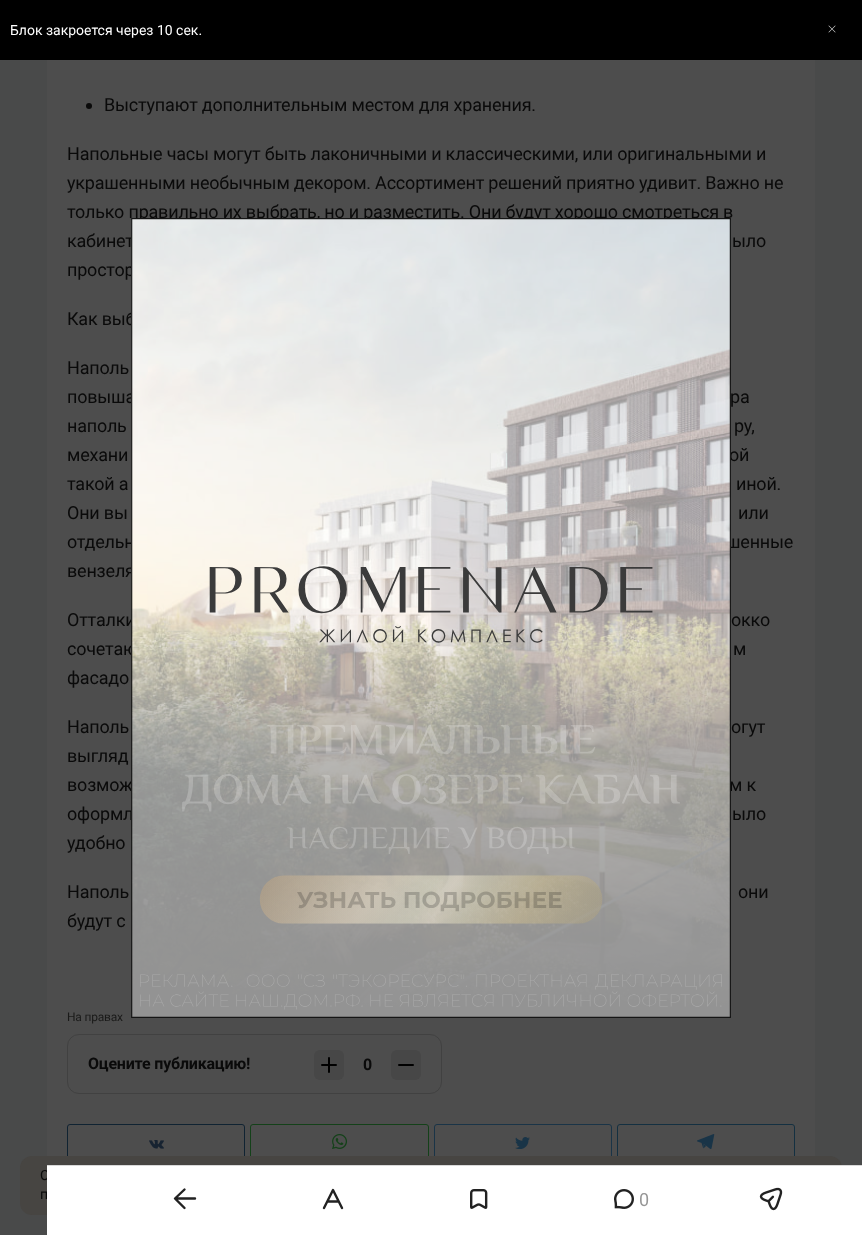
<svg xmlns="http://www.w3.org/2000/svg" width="862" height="1235">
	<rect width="100%" height="100%" fill="#494A4A" />
	<rect x="0" y="0" width="862" height="60" fill="#000000" />
	<text x="10" y="35" font-family="Roboto" font-size="14" fill="#FFFFFF">Блок закроется через 10 сек.</text>
	<image x="828" y="25" width="8" height="8" href="assets/img1.png" />
	<rect x="47" y="60" width="768" height="1096" fill="#4D4D4D" />
	<circle cx="89" cy="106" r="3" fill="#0A0A0A" />
	<g font-family="Roboto" font-size="18" letter-spacing="-0.2" fill="#0A0A0A">
		<text x="104" y="111">Выступают дополнительным местом для хранения.</text>
		<text x="67" y="160">Напольные часы могут быть лаконичными и классическими, или оригинальными и</text>
		<text x="67" y="189">украшенными необычным декором. Ассортимент решений приятно удивит. Важно не</text>
		<text x="67" y="218">только правильно их выбрать, но и разместить. Они будут хорошо смотреться в</text>
		<text x="67" y="247">кабинет</text>
		<text x="732" y="247">ыло</text>
		<text x="67" y="276">простор</text>
		<text x="67" y="325">Как выб</text>
		<text x="67" y="374">Наполь</text>
		<text x="67" y="403">повыша</text>
		<text x="730" y="403">ра</text>
		<text x="67" y="432">наполь</text>
		<text x="734" y="432">ру,</text>
		<text x="67" y="461">механи</text>
		<text x="729" y="461">ой</text>
		<text x="67" y="490">такой а</text>
		<text x="736" y="490">иной.</text>
		<text x="67" y="519">Они вы</text>
		<text x="738" y="519">или</text>
		<text x="67" y="548">отдельн</text>
		<text x="726" y="548">шенные</text>
		<text x="67" y="577">вензеля</text>
		<text x="67" y="626">Отталки</text>
		<text x="731" y="626">окко</text>
		<text x="67" y="655">сочетаю</text>
		<text x="733" y="655">м</text>
		<text x="67" y="684">фасадо</text>
		<text x="67" y="733">Наполь</text>
		<text x="731" y="733">огут</text>
		<text x="67" y="762">выгляд</text>
		<text x="67" y="791">возмож</text>
		<text x="729" y="791">м к</text>
		<text x="67" y="820">оформл</text>
		<text x="732" y="820">ыло</text>
		<text x="67" y="849">удобно</text>
		<text x="67" y="898">Наполь</text>
		<text x="738" y="898">они</text>
		<text x="67" y="927">будут с</text>
	</g>
	<text x="67" y="1021" font-family="Roboto" font-size="12" letter-spacing="-0.2" fill="#1A1A19">На правах</text>
	<rect x="67.5" y="1034.5" width="374" height="59" rx="11.5" fill="none" stroke="#414141" />
	<text x="88" y="1069" font-family="Roboto" font-size="16" font-weight="700" letter-spacing="-0.2" fill="#0A0A0A">Оцените публикацию!</text>
	<rect x="314" y="1050" width="30" height="30" rx="6" fill="#474747" />
	<path d="M329 1058V1072M322 1065H336" fill="none" stroke="#000000" stroke-width="2" stroke-linecap="round" />
	<text x="363" y="1070" font-family="Roboto" font-size="16" font-weight="700" letter-spacing="-0.2" fill="#0A0A0A">0</text>
	<rect x="391" y="1050" width="30" height="30" rx="6" fill="#474747" />
	<path d="M399 1065H413" fill="none" stroke="#000000" stroke-width="2" stroke-linecap="round" />
	<rect x="67.5" y="1124.5" width="177" height="34" rx="2.5" fill="none" stroke="#102332" />
	<image x="149" y="1140" width="15" height="9" href="assets/img2.png" />
	<rect x="250.5" y="1124.5" width="178" height="34" rx="2.5" fill="none" stroke="#144119" />
	<image x="332" y="1134" width="15" height="15" href="assets/img3.png" />
	<rect x="434.5" y="1124.5" width="177" height="34" rx="2.5" fill="none" stroke="#1A3447" />
	<image x="515" y="1137" width="15" height="12" href="assets/img4.png" />
	<rect x="617.5" y="1124.5" width="177" height="34" rx="2.5" fill="none" stroke="#143041" />
	<image x="697" y="1134" width="18" height="15" href="assets/img5.png" />
	<image x="131" y="218" width="600" height="800" href="assets/img6.png" />
	<rect x="20" y="1156" width="822" height="59" rx="12" fill="#474542" />
	<g font-family="Roboto" font-size="14" fill="#0A0A0A">
		<text x="40" y="1180">С</text>
		<text x="40" y="1199">п</text>
	</g>
	<rect x="47" y="1166" width="815" height="69" fill="#FFFFFF" />
	<rect x="47" y="1165" width="815" height="1" fill="#D9D9D9" />
	<path d="M184.5 1189.5L175 1198.5L184.5 1208M195 1198.5H175.5" fill="none" stroke="#222222" stroke-width="2.4" stroke-linecap="round" stroke-linejoin="round" />
	<path d="M324 1208L333 1190L342 1208M327.5 1201.5H338.5" fill="none" stroke="#222222" stroke-width="2.4" stroke-linecap="round" stroke-linejoin="round" />
	<image x="470" y="1189" width="18" height="20" href="assets/img7.png" />
	<image x="614" y="1189" width="20" height="20" href="assets/img8.png" />
	<text x="639" y="1206" font-family="Roboto" font-size="18" fill="#969696">0</text>
	<image x="759" y="1187" width="24" height="24" href="assets/img9.png" />
</svg>
